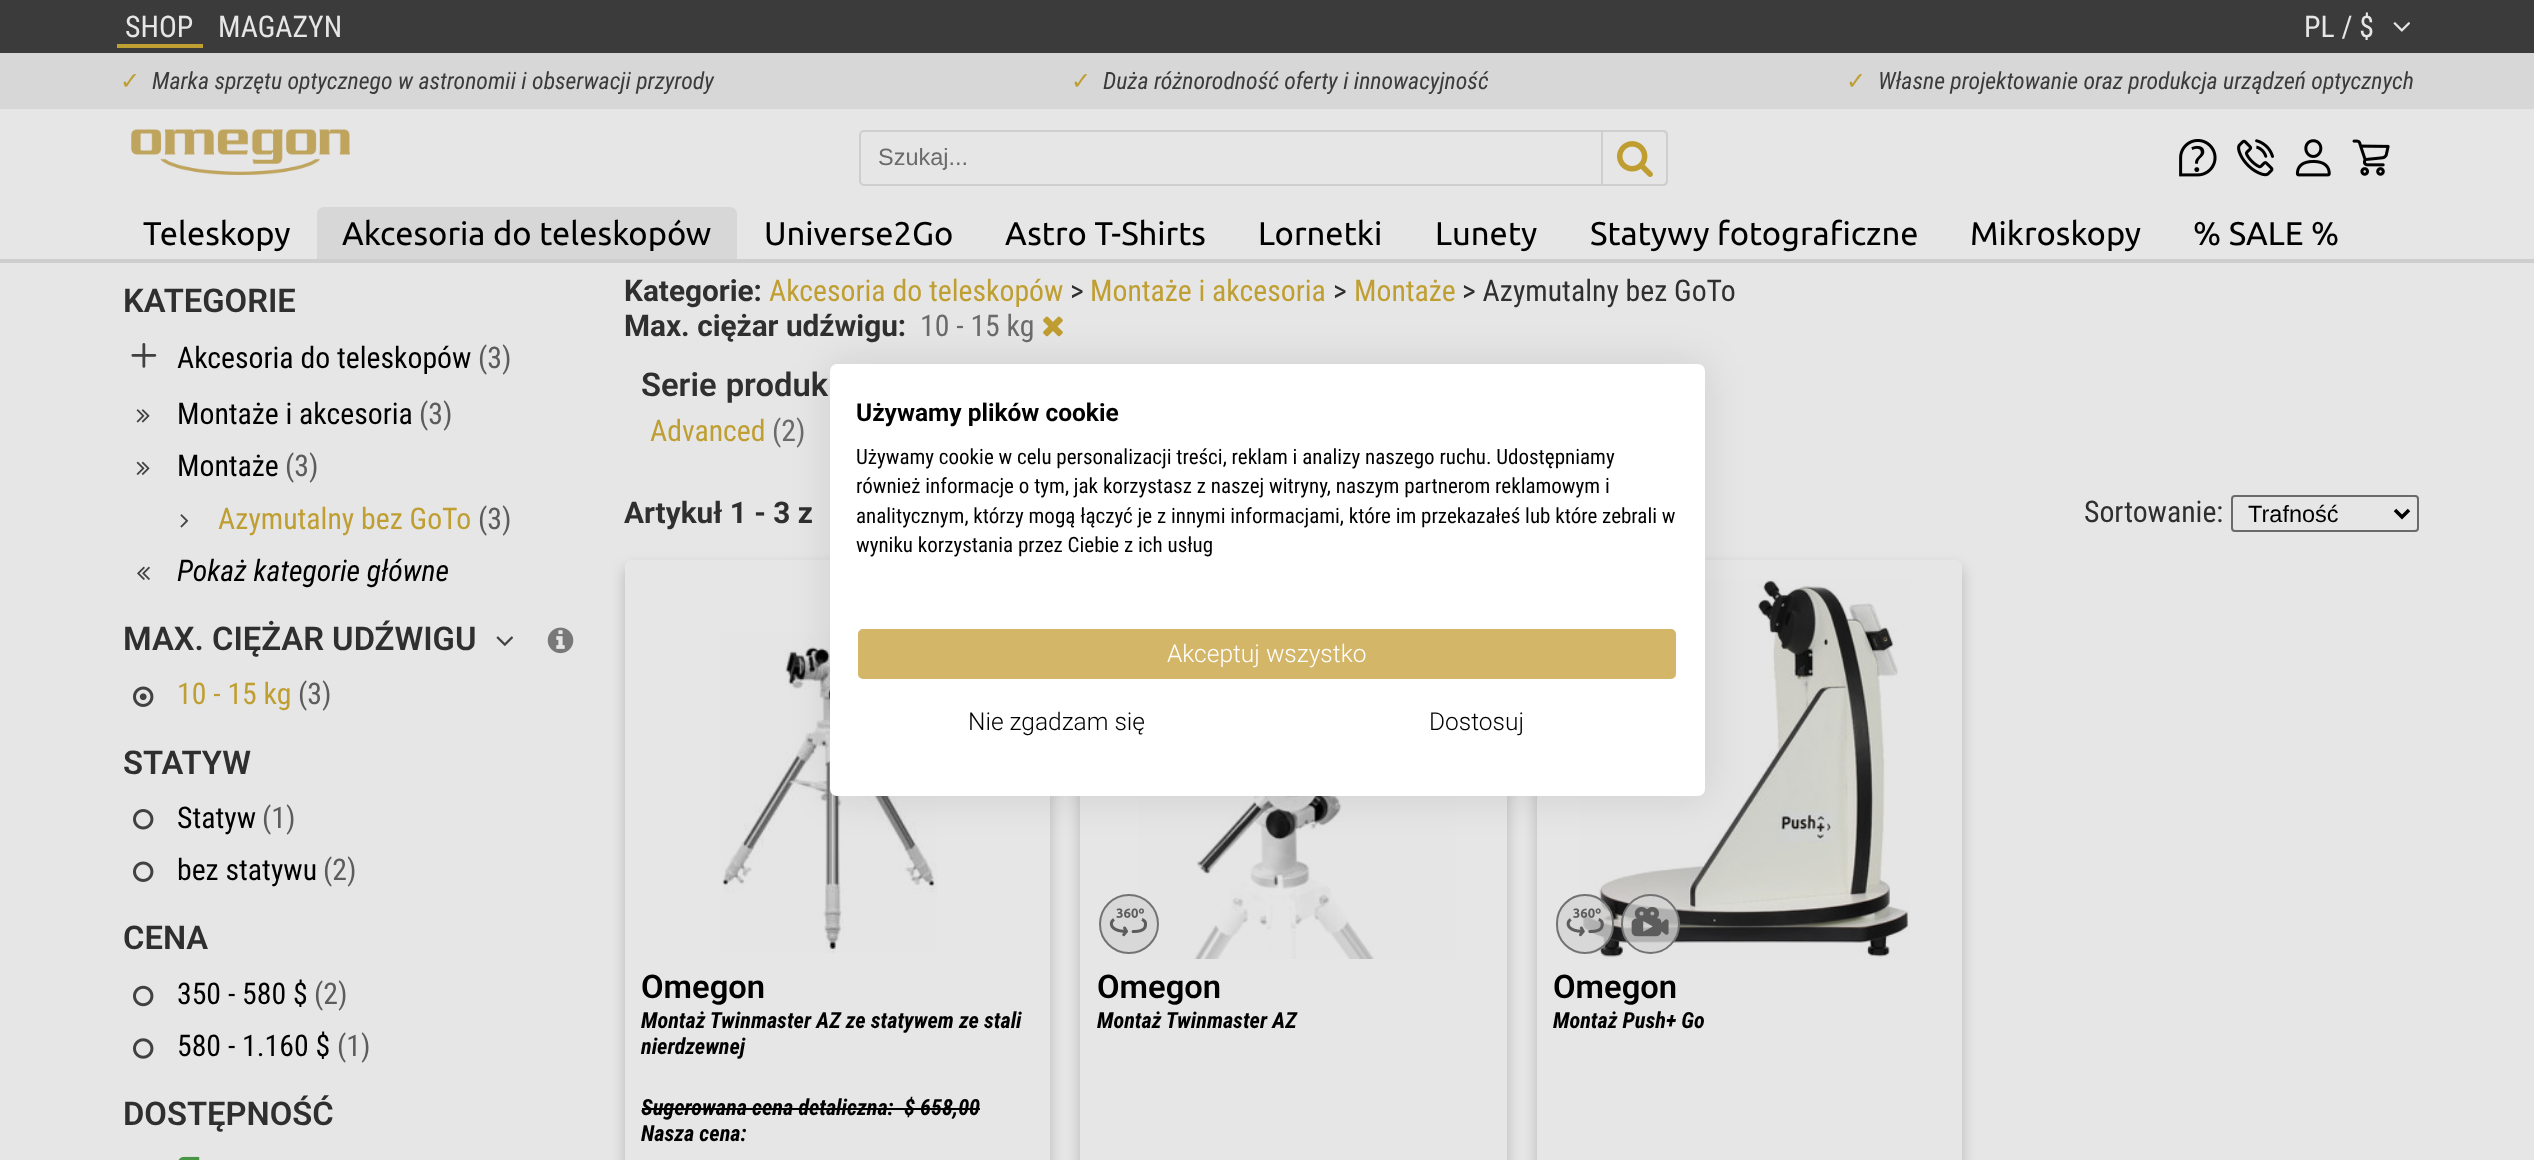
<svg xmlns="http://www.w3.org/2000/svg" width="2534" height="1160">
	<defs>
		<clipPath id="clip1"><path d="M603 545H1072V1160H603ZM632 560H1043C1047 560 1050 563 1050 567V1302C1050 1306 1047 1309 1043 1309H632C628 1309 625 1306 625 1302V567C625 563 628 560 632 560Z" clip-rule="evenodd" /></clipPath>
		<clipPath id="clip2"><path d="M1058 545H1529V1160H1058ZM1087 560H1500C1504 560 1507 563 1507 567V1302C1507 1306 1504 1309 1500 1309H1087C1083 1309 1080 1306 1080 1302V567C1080 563 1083 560 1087 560Z" clip-rule="evenodd" /></clipPath>
		<clipPath id="clip3"><path d="M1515 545H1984V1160H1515ZM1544 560H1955C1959 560 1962 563 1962 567V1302C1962 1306 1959 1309 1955 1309H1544C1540 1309 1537 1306 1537 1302V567C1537 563 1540 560 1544 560Z" clip-rule="evenodd" /></clipPath>
	</defs>
	<rect width="100%" height="100%" fill="#E6E6E6" />
	<rect x="0" y="0" width="2534" height="53" fill="#3B3B3C" />
	<text x="125" y="37" font-family="Roboto Condensed" font-size="29.75" fill="#E6E6E6">SHOP</text>
	<rect x="117" y="44" width="86" height="4" fill="#BF9E32" />
	<g font-family="Roboto Condensed" font-size="29.75" fill="#E6E6E6">
		<text x="218" y="37">MAGAZYN</text>
		<text x="2304" y="37">PL / $</text>
	</g>
	<image x="2393" y="22" width="18" height="10" href="assets/img1.png" />
	<rect x="0" y="53" width="2534" height="56" fill="#D7D7D7" />
	<text x="120" y="89" font-family="DejaVu Sans" font-size="23.8" fill="#BF9E32">✓</text>
	<text x="152" y="89" font-family="Roboto Condensed" font-size="23.8" font-style="italic" fill="#3B3B3C">Marka sprzętu optycznego w astronomii i obserwacji przyrody</text>
	<text x="1071" y="89" font-family="DejaVu Sans" font-size="23.8" fill="#BF9E32">✓</text>
	<text x="1103" y="89" font-family="Roboto Condensed" font-size="23.8" font-style="italic" fill="#3B3B3C">Duża różnorodność oferty i innowacyjność</text>
	<text x="1846" y="89" font-family="DejaVu Sans" font-size="23.8" fill="#BF9E32">✓</text>
	<text x="1878" y="89" font-family="Roboto Condensed" font-size="23.8" font-style="italic" fill="#3B3B3C">Własne projektowanie oraz produkcja urządzeń optycznych</text>
	<image x="131" y="129" width="219" height="46" href="assets/img2.png" />
	<rect x="860" y="131" width="807" height="54" rx="4" fill="none" stroke="#CECECE" stroke-width="2" />
	<text x="878" y="165" font-family="Liberation Sans" font-size="23.5" fill="#6B6B6B">Szukaj...</text>
	<path d="M1602 131H1663C1665 131 1667 133 1667 135V181C1667 183 1665 185 1663 185H1602Z" fill="#E6E6E6" stroke="#CECECE" stroke-width="2" />
	<image x="1617" y="141" width="36" height="36" href="assets/img3.png" />
	<image x="2179" y="139" width="38" height="38" href="assets/img4.png" />
	<image x="2237" y="139" width="37" height="38" href="assets/img5.png" />
	<image x="2295" y="139" width="36" height="38" href="assets/img6.png" />
	<image x="2352" y="139" width="38" height="37" href="assets/img7.png" />
	<text x="143" y="245" font-family="Ubuntu" font-size="32.75" fill="#000000">Teleskopy</text>
	<path d="M324 207H730C734 207 737 210 737 214V259H317V214C317 210 320 207 324 207Z" fill="#D7D7D7" />
	<g font-family="Ubuntu" font-size="32.75" fill="#000000">
		<text x="342" y="245">Akcesoria do teleskopów</text>
		<text x="764" y="245">Universe2Go</text>
		<text x="1005" y="245">Astro T-Shirts</text>
		<text x="1258" y="245">Lornetki</text>
		<text x="1435" y="245">Lunety</text>
		<text x="1590" y="245">Statywy fotograficzne</text>
		<text x="1970" y="245">Mikroskopy</text>
		<text x="2193" y="245">% SALE %</text>
	</g>
	<rect x="0" y="259" width="2534" height="4" fill="#CECECE" />
	<text x="123" y="312" font-family="Roboto" font-size="32.75" font-weight="600" fill="#2F2F2F">KATEGORIE</text>
	<image x="131" y="343" width="26" height="25" href="assets/img8.png" />
	<text x="177" y="368" font-family="Roboto Condensed" font-size="29.75" fill="#000000">Akcesoria do teleskopów</text>
	<text x="478" y="368" font-family="Roboto Condensed" font-size="29.75" fill="#5C5C5C">(3)</text>
	<image x="136" y="409" width="14" height="14" href="assets/img9.png" />
	<text x="177" y="424" font-family="Roboto Condensed" font-size="29.75" fill="#000000">Montaże i akcesoria</text>
	<text x="419" y="424" font-family="Roboto Condensed" font-size="29.75" fill="#5C5C5C">(3)</text>
	<image x="136" y="461" width="14" height="14" href="assets/img10.png" />
	<text x="177" y="476" font-family="Roboto Condensed" font-size="29.75" fill="#000000">Montaże</text>
	<text x="285" y="476" font-family="Roboto Condensed" font-size="29.75" fill="#5C5C5C">(3)</text>
	<image x="180" y="514" width="9" height="14" href="assets/img11.png" />
	<text x="218" y="529" font-family="Roboto Condensed" font-size="29.75" fill="#BF9E32">Azymutalny bez GoTo</text>
	<text x="478" y="529" font-family="Roboto Condensed" font-size="29.75" fill="#5C5C5C">(3)</text>
	<image x="137" y="566" width="13" height="14" href="assets/img12.png" />
	<text x="177" y="581" font-family="Roboto Condensed" font-size="29.75" font-style="italic" fill="#000000">Pokaż kategorie główne</text>
	<text x="123" y="650" font-family="Roboto" font-size="32.75" font-weight="600" fill="#2F2F2F">MAX. CIĘŻAR UDŹWIGU</text>
	<image x="496" y="636" width="17" height="10" href="assets/img13.png" />
	<image x="547" y="627" width="27" height="27" href="assets/img14.png" />
	<image x="133" y="686" width="21" height="21" href="assets/img15.png" />
	<text x="177" y="704" font-family="Roboto Condensed" font-size="29.75" fill="#BF9E32">10 - 15 kg</text>
	<text x="298" y="704" font-family="Roboto Condensed" font-size="29.75" fill="#5C5C5C">(3)</text>
	<text x="123" y="774" font-family="Roboto" font-size="32.75" font-weight="600" fill="#2F2F2F">STATYW</text>
	<image x="133" y="809" width="21" height="21" href="assets/img16.png" />
	<text x="177" y="828" font-family="Roboto Condensed" font-size="29.75" fill="#000000">Statyw</text>
	<text x="262" y="828" font-family="Roboto Condensed" font-size="29.75" fill="#5C5C5C">(1)</text>
	<image x="133" y="861" width="21" height="21" href="assets/img17.png" />
	<text x="177" y="880" font-family="Roboto Condensed" font-size="29.75" fill="#000000">bez statywu</text>
	<text x="323" y="880" font-family="Roboto Condensed" font-size="29.75" fill="#5C5C5C">(2)</text>
	<text x="123" y="949" font-family="Roboto" font-size="32.75" font-weight="600" fill="#2F2F2F">CENA</text>
	<image x="133" y="985" width="21" height="22" href="assets/img18.png" />
	<text x="177" y="1004" font-family="Roboto Condensed" font-size="29.75" fill="#000000">350 - 580 $</text>
	<text x="314" y="1004" font-family="Roboto Condensed" font-size="29.75" fill="#5C5C5C">(2)</text>
	<image x="133" y="1038" width="21" height="21" href="assets/img19.png" />
	<text x="177" y="1056" font-family="Roboto Condensed" font-size="29.75" fill="#000000">580 - 1.160 $</text>
	<text x="337" y="1056" font-family="Roboto Condensed" font-size="29.75" fill="#5C5C5C">(1)</text>
	<text x="123" y="1125" font-family="Roboto" font-size="32.75" font-weight="600" fill="#2F2F2F">DOSTĘPNOŚĆ</text>
	<image x="178" y="1156" width="22" height="4" href="assets/img20.png" />
	<text x="624" y="301" font-family="Roboto" font-size="29.75" font-weight="700" fill="#2F2F2F">Kategorie:</text>
	<text x="769" y="301" font-family="Roboto Condensed" font-size="29.75" fill="#BF9E32">Akcesoria do teleskopów</text>
	<text x="1070" y="301" font-family="Roboto Condensed" font-size="29.75" fill="#2F2F2F">&gt;</text>
	<text x="1090" y="301" font-family="Roboto Condensed" font-size="29.75" fill="#BF9E32">Montaże i akcesoria</text>
	<text x="1333" y="301" font-family="Roboto Condensed" font-size="29.75" fill="#2F2F2F">&gt;</text>
	<text x="1354" y="301" font-family="Roboto Condensed" font-size="29.75" fill="#BF9E32">Montaże</text>
	<text x="1462" y="301" font-family="Roboto Condensed" font-size="29.75" fill="#2F2F2F">&gt; Azymutalny bez GoTo</text>
	<text x="624" y="336" font-family="Roboto" font-size="29.75" font-weight="700" fill="#2F2F2F">Max. ciężar udźwigu:</text>
	<text x="920" y="336" font-family="Roboto Condensed" font-size="29.75" fill="#6B6B6B">10 - 15 kg</text>
	<image x="1043" y="316" width="20" height="21" href="assets/img21.png" />
	<text x="641" y="396" word-spacing="1" font-family="Roboto" font-size="32.75" font-weight="600" fill="#2F2F2F">Serie produk</text>
	<text x="650" y="441" font-family="Roboto Condensed" font-size="29.75" fill="#BF9E32">Advanced</text>
	<text x="772" y="441" font-family="Roboto Condensed" font-size="29.75" fill="#6B6B6B">(2)</text>
	<text x="624" y="523" font-family="Roboto" font-size="29.75" font-weight="700" fill="#2F2F2F">Artykuł 1 - 3 z</text>
	<text x="2084" y="522" font-family="Roboto Condensed" font-size="29.75" fill="#2F2F2F">Sortowanie:</text>
	<rect x="2232" y="496" width="186" height="35" rx="3" fill="none" stroke="#6A6A6A" stroke-width="2" />
	<path d="M2395 510L2402 517L2409 510" fill="none" stroke="#000000" stroke-width="3.5" />
	<text x="2248" y="522" font-family="Liberation Sans" font-size="23.5" fill="#000000">Trafność</text>
	<g clip-path="url(#clip1)">
		<rect x="625" y="567" width="425" height="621" rx="7" fill="#000000" fill-opacity="0.2" filter="blur(7px)" />
	</g>
	<image x="721" y="631" width="216" height="322" href="assets/img22.png" />
	<text x="641" y="998" font-family="Roboto" font-size="32.75" font-weight="600" fill="#000000">Omegon</text>
	<g font-family="Roboto Condensed" font-size="22.3" font-weight="700" font-style="italic" fill="#000000">
		<text x="641" y="1028">Montaż Twinmaster AZ ze statywem ze stali</text>
		<text x="641" y="1054">nierdzewnej</text>
		<text x="641" y="1115">Sugerowana cena detaliczna:</text>
	</g>
	<rect x="642" y="1108" width="263" height="2" fill="#000000" />
	<text x="904" y="1115" font-family="Roboto Condensed" font-size="22.3" font-weight="700" font-style="italic" fill="#000000">$ 658,00</text>
	<rect x="905" y="1108" width="75" height="2" fill="#000000" />
	<text x="641" y="1141" font-family="Roboto Condensed" font-size="22.3" font-weight="700" font-style="italic" fill="#000000">Nasza cena:</text>
	<g clip-path="url(#clip2)">
		<rect x="1080" y="567" width="427" height="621" rx="7" fill="#000000" fill-opacity="0.2" filter="blur(7px)" />
	</g>
	<image x="1138" y="796" width="317" height="163" href="assets/img24.png" />
	<circle cx="1129" cy="924" r="29" fill="#D8D8D8" stroke="#737373" stroke-width="2" />
	<image x="1109" y="908" width="38" height="29" href="assets/img23.png" />
	<text x="1097" y="998" font-family="Roboto" font-size="32.75" font-weight="600" fill="#000000">Omegon</text>
	<text x="1097" y="1028" font-family="Roboto Condensed" font-size="22.3" font-weight="700" font-style="italic" fill="#000000">Montaż Twinmaster AZ</text>
	<g clip-path="url(#clip3)">
		<rect x="1537" y="567" width="425" height="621" rx="7" fill="#000000" fill-opacity="0.2" filter="blur(7px)" />
	</g>
	<image x="1580" y="579" width="330" height="380" href="assets/img25.png" />
	<rect x="1557" y="895" width="56" height="58" rx="28" fill="#D4D4D4" fill-opacity="0.8" stroke="#737373" stroke-width="2" />
	<image x="1566" y="908" width="38" height="29" href="assets/img26.png" />
	<rect x="1622" y="895" width="57" height="58" rx="28.5" fill="#D4D4D4" fill-opacity="0.8" stroke="#737373" stroke-width="2" />
	<image x="1631" y="907" width="38" height="30" href="assets/img27.png" />
	<text x="1553" y="998" font-family="Roboto" font-size="32.75" font-weight="600" fill="#000000">Omegon</text>
	<text x="1553" y="1028" font-family="Roboto Condensed" font-size="22.3" font-weight="700" font-style="italic" fill="#000000">Montaż Push+ Go</text>
	<rect x="830" y="364" width="875" height="432" rx="7" fill="#000000" fill-opacity="0.1" filter="blur(21px)" />
	<rect x="830" y="364" width="875" height="432" rx="7" fill="#FFFFFF" />
	<text x="856" y="421" font-family="Roboto" font-size="24.5" font-weight="700" fill="#000000">Używamy plików cookie</text>
	<g font-family="Roboto Condensed" font-size="21" fill="#000000">
		<text x="856" y="464">Używamy cookie w celu personalizacji treści, reklam i analizy naszego ruchu. Udostępniamy</text>
		<text x="856" y="493">również informacje o tym, jak korzystasz z naszej witryny, naszym partnerom reklamowym i</text>
		<text x="856" y="523">analitycznym, którzy mogą łączyć je z innymi informacjami, które im przekazałeś lub które zebrali w</text>
		<text x="856" y="552">wyniku korzystania przez Ciebie z ich usług</text>
	</g>
	<rect x="857" y="628" width="820" height="52" rx="6" fill="#D4B668" stroke="#FFFFFF" stroke-width="2" />
	<text x="1167" y="662" font-family="Roboto" font-size="24.5" font-weight="300" fill="#FFFFFF">Akceptuj wszystko</text>
	<g font-family="Roboto" font-size="24.5" font-weight="300" fill="#000000">
		<text x="968" y="730">Nie zgadzam się</text>
		<text x="1429" y="730">Dostosuj</text>
	</g>
</svg>
